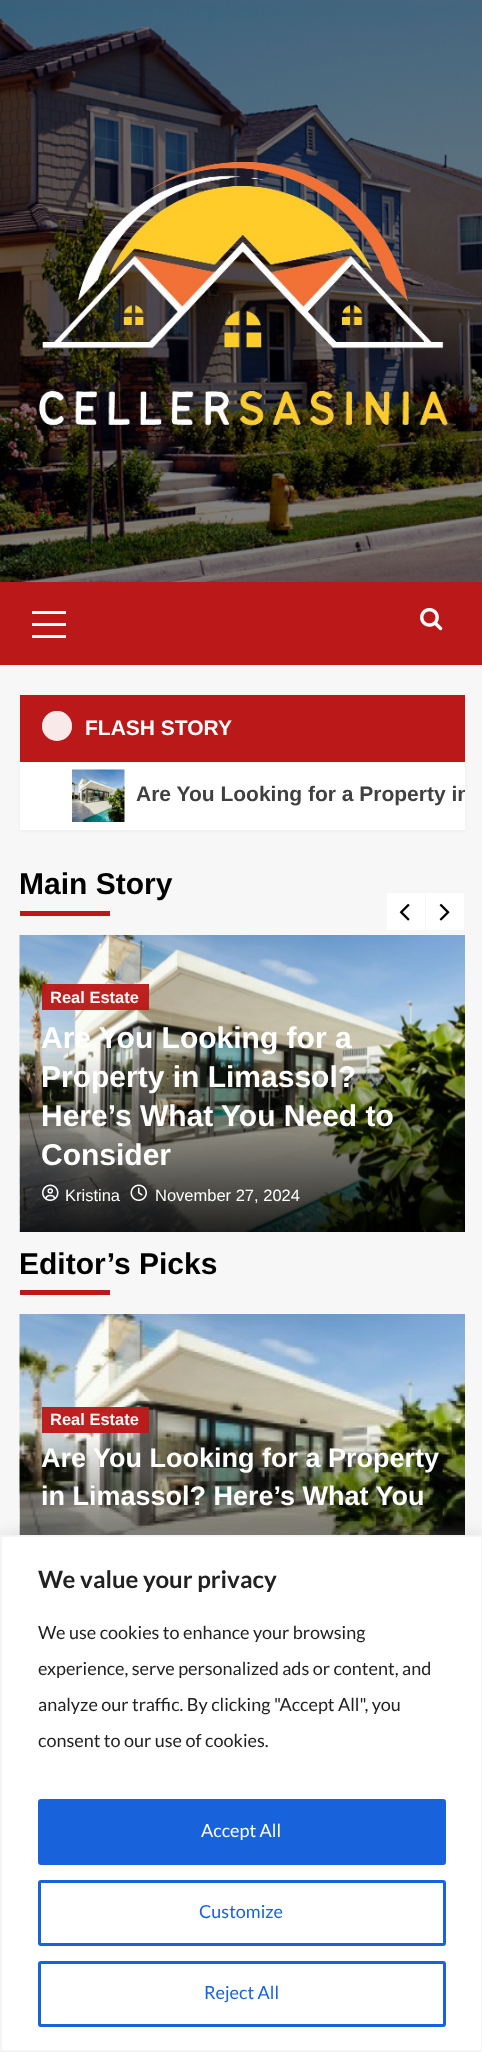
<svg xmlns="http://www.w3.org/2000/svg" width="482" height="2052">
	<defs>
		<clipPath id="clip1"><rect x="27" y="762" width="438" height="68" /></clipPath>
	</defs>
	<rect width="100%" height="100%" fill="#F7F7F7" />
	<image x="0" y="0" width="482" height="582" href="assets/img1.png" />
	<image x="39" y="161" width="409" height="265" href="assets/img2.png" />
	<rect x="0" y="582" width="482" height="83" fill="#BB1919" />
	<rect x="32" y="623" width="34" height="3" fill="#FFFFFF" />
	<rect x="32" y="611" width="34" height="3" fill="#FFFFFF" />
	<rect x="32" y="635" width="34" height="3" fill="#FFFFFF" />
	<image x="420" y="607" width="23" height="24" href="assets/img3.png" />
	<rect x="20" y="696" width="445" height="135" fill="#000000" fill-opacity="0.05" filter="blur(1.5px)" />
	<rect x="20" y="762" width="445" height="68" fill="#FFFFFF" />
	<rect x="20" y="695" width="445" height="67" fill="#BB1919" />
	<circle cx="57" cy="726" r="15" fill="#EBBABA" />
	<circle cx="57" cy="726" r="15" fill="#FFFFFF" fill-opacity="0.7" />
	<text x="85" y="735" font-family="Liberation Sans" font-size="21" font-weight="700" fill="#FFFFFF">FLASH STORY</text>
	<image x="72" y="769" width="53" height="53" href="assets/img4.png" />
	<g clip-path="url(#clip1)">
		<text x="136" y="801" font-family="Liberation Sans" font-size="21" font-weight="700" fill="#404040">Are You Looking for a Property in</text>
	</g>
	<text x="19" y="894" font-family="Liberation Sans" font-size="30" font-weight="700" fill="#000000">Main Story</text>
	<rect x="20" y="911" width="90" height="5" fill="#BB1919" />
	<rect x="387" y="893" width="38" height="37" fill="#FFFFFF" />
	<image x="399" y="903" width="11" height="18" href="assets/img5.png" />
	<rect x="426" y="893" width="38" height="37" fill="#FFFFFF" />
	<image x="439" y="903" width="11" height="18" href="assets/img6.png" />
	<image x="19" y="935" width="446" height="297" href="assets/img7.png" />
	<rect x="42" y="984" width="107" height="26" fill="#BB1919" fill-opacity="0.96" />
	<text x="50" y="1003" font-family="Liberation Sans" font-size="16.5" font-weight="700" fill="#FCF6F6">Real Estate</text>
	<g font-family="Liberation Sans" font-size="30" font-weight="700" fill="#FFFFFF">
		<text x="41" y="1048">Are You Looking for a</text>
		<text x="41" y="1087">Property in Limassol?</text>
		<text x="41" y="1126">Here’s What You Need to</text>
		<text x="41" y="1165">Consider</text>
	</g>
	<image x="42" y="1184" width="17" height="17" href="assets/img8.png" />
	<text x="65" y="1201" font-family="Liberation Sans" font-size="16.5" fill="#FFFFFF">Kristina</text>
	<image x="130" y="1184" width="17" height="17" href="assets/img9.png" />
	<text x="155" y="1201" font-family="Liberation Sans" font-size="16.5" fill="#FFFFFF">November 27, 2024</text>
	<text x="19" y="1274" font-family="Liberation Sans" font-size="30" font-weight="700" fill="#000000">Editor’s Picks</text>
	<rect x="20" y="1290" width="90" height="5" fill="#BB1919" />
	<image x="19" y="1314" width="446" height="221" href="assets/img10.png" />
	<rect x="42" y="1407" width="107" height="26" fill="#BB1919" fill-opacity="0.96" />
	<text x="50" y="1425" font-family="Liberation Sans" font-size="16.5" font-weight="700" fill="#FCF6F6">Real Estate</text>
	<g font-family="Liberation Sans" font-size="27" font-weight="700" fill="#FFFFFF">
		<text x="41" y="1467">Are You Looking for a Property</text>
		<text x="41" y="1505">in Limassol? Here’s What You</text>
	</g>
	<rect x="0" y="1533" width="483" height="518" fill="#ACABAB" fill-opacity="0.3" filter="blur(7.5px)" />
	<rect x="1" y="1536" width="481" height="515" fill="#FFFFFF" stroke="#F4F4F4" stroke-width="2" />
	<text x="38" y="1588" font-family="Lato" font-size="24" font-weight="700" fill="#212121">We value your privacy</text>
	<g font-family="Lato" font-size="18" fill="#212121">
		<text x="38" y="1639">We use cookies to enhance your browsing</text>
		<text x="38" y="1675">experience, serve personalized ads or content, and</text>
		<text x="38" y="1711">analyze our traffic. By clicking "Accept All", you</text>
		<text x="38" y="1747">consent to our use of cookies.</text>
	</g>
	<rect x="39.5" y="1800.5" width="405" height="63" rx="1.5" fill="#1863DC" stroke="#1863DC" stroke-width="3" />
	<text x="201" y="1837" font-family="Lato" font-size="18" fill="#FFFFFF">Accept All</text>
	<rect x="39.5" y="1881.5" width="405" height="63" rx="1.5" fill="none" stroke="#1863DC" stroke-width="3" />
	<text x="199" y="1918" font-family="Lato" font-size="18" fill="#1863DC">Customize</text>
	<rect x="39.5" y="1962.5" width="405" height="63" rx="1.5" fill="none" stroke="#1863DC" stroke-width="3" />
	<text x="204" y="1999" font-family="Lato" font-size="18" fill="#1863DC">Reject All</text>
</svg>
